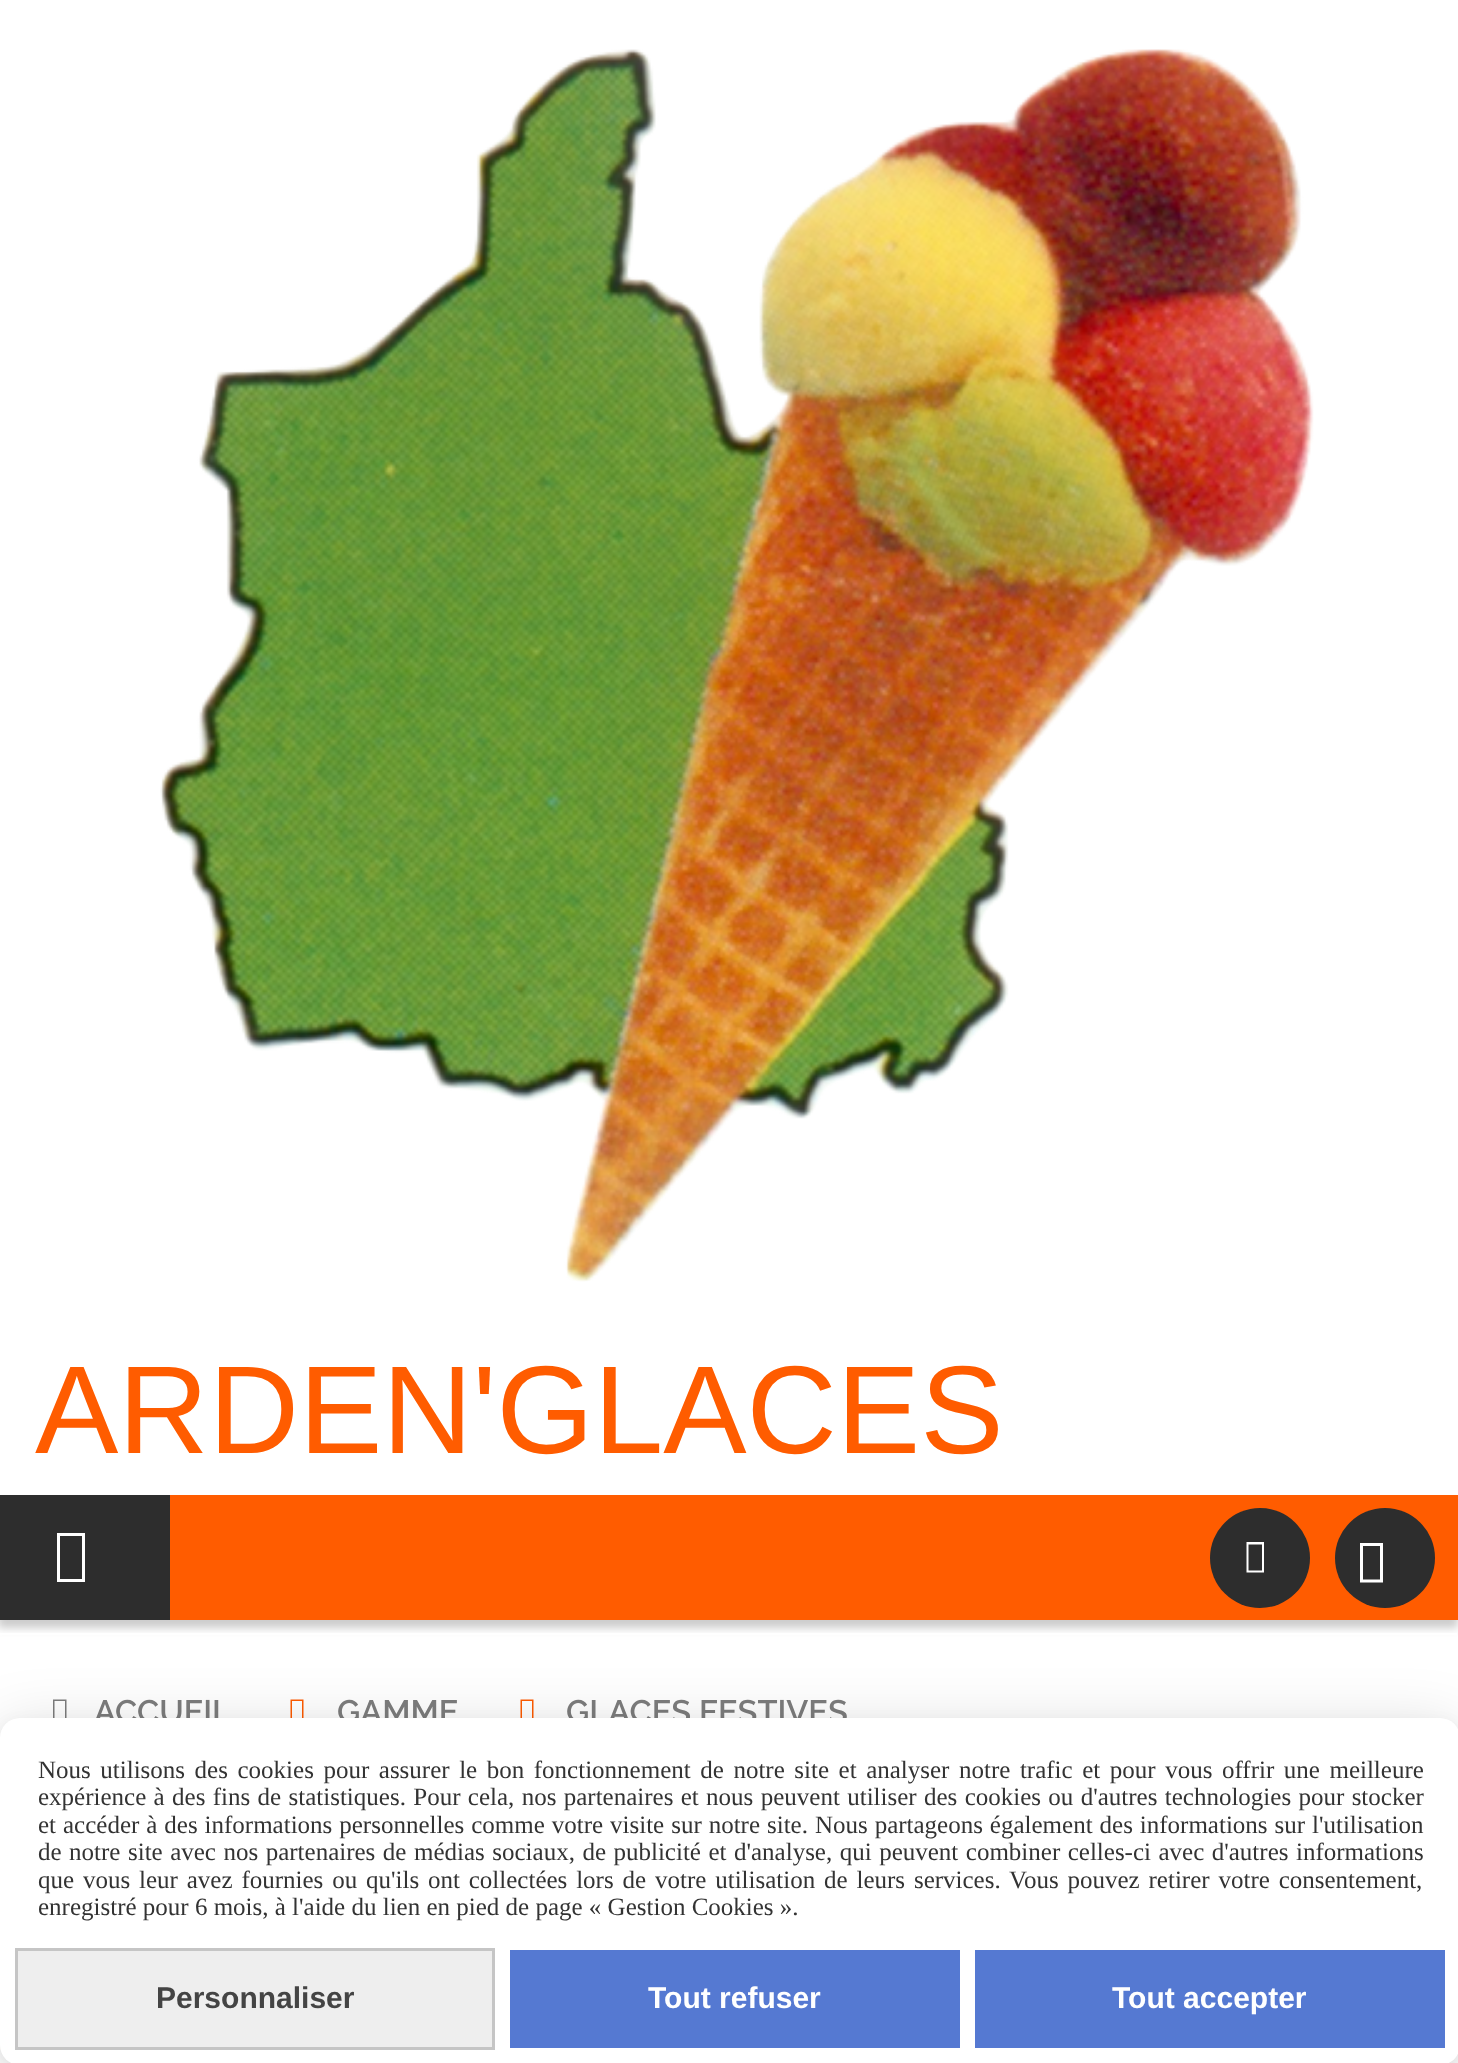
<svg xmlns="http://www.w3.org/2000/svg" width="1458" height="2063">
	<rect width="100%" height="100%" fill="#FFFFFF" />
	<image x="160" y="49" width="1154" height="1233" href="assets/img1.png" />
	<text x="35" y="1453" font-family="Liberation Sans" font-size="125" fill="#FF5C00">ARDEN'GLACES</text>
	<rect x="-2" y="1503" width="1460" height="125" fill="#000000" fill-opacity="0.2" filter="blur(4px)" />
	<rect x="0" y="1495" width="170" height="125" fill="#2D2D2D" />
	<path d="M57 1582V1533H85V1582ZM60 1579H82V1536H60Z" fill="#FFFFFF" />
	<rect x="170" y="1495" width="1288" height="125" fill="#FF5C00" />
	<circle cx="1260" cy="1558" r="50" fill="#2D2D2D" />
	<path d="M1246.5 1572.5V1542H1264V1572.5ZM1248.5 1570.5H1262V1544.5H1248.5Z" fill="#FFFFFF" />
	<circle cx="1385" cy="1558" r="50" fill="#2D2D2D" />
	<path d="M1360 1582.5V1543H1383V1582.5ZM1363 1579.5H1380V1546H1363Z" fill="#FFFFFF" />
	<rect x="0" y="1633" width="1457" height="2" fill="#FFFFFF" />
	<path d="M53 1722.5V1699.5H66.5V1722.5ZM54.5 1721H65V1701H54.5Z" fill="#7D7D7D" />
	<text x="94" y="1723" font-family="Raleway" font-size="32.5" font-weight="600" fill="#7D7D7D">ACCUEIL</text>
	<path d="M290.5 1722.5V1699.5H303.5V1722.5ZM292 1721H302V1701H292Z" fill="#FF5C00" />
	<text x="337" y="1723" font-family="Raleway" font-size="32.5" font-weight="600" fill="#7D7D7D">GAMME</text>
	<path d="M520.5 1722.5V1699.5H533.5V1722.5ZM522 1721H532V1701H522Z" fill="#FF5C00" />
	<text x="566" y="1723" font-family="Raleway" font-size="32.5" font-weight="600" fill="#7D7D7D">GLACES FESTIVES</text>
	<rect x="0" y="1723" width="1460" height="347" rx="20" fill="#000000" fill-opacity="0.05" filter="blur(7.5px)" />
	<rect x="0" y="1728" width="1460" height="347" rx="20" fill="#000000" fill-opacity="0.15" filter="blur(30px)" />
	<rect x="0" y="1718" width="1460" height="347" rx="20" fill="#FFFFFF" />
	<g font-family="Liberation Serif" font-size="25" fill="#333333">
		<text x="38" y="1778" word-spacing="3.3">Nous utilisons des cookies pour assurer le bon fonctionnement de notre site et analyser notre trafic et pour vous offrir une meilleure</text>
		<text x="38" y="1805" word-spacing="1.1">expérience à des fins de statistiques. Pour cela, nos partenaires et nous peuvent utiliser des cookies ou d'autres technologies pour stocker</text>
		<text x="38" y="1833" word-spacing="0.7">et accéder à des informations personnelles comme votre visite sur notre site. Nous partageons également des informations sur l'utilisation</text>
		<text x="38" y="1860" word-spacing="1.25">de notre site avec nos partenaires de médias sociaux, de publicité et d'analyse, qui peuvent combiner celles-ci avec d'autres informations</text>
		<text x="38" y="1888" word-spacing="2.6">que vous leur avez fournies ou qu'ils ont collectées lors de votre utilisation de leurs services. Vous pouvez retirer votre consentement,</text>
		<text x="38" y="1915">enregistré pour 6 mois, à l'aide du lien en pied de page « Gestion Cookies ».</text>
	</g>
	<rect x="16.5" y="1949.5" width="477" height="99" fill="#EEEEEE" stroke="#C5C5C5" stroke-width="3" />
	<text x="156" y="2008" font-family="Liberation Sans" font-size="30" font-weight="700" fill="#444444">Personnaliser</text>
	<rect x="510" y="1950" width="450" height="98" fill="#5579D2" />
	<text x="648" y="2008" font-family="Liberation Sans" font-size="30" font-weight="700" fill="#FFFFFF">Tout refuser</text>
	<rect x="975" y="1950" width="470" height="98" fill="#5579D2" />
	<text x="1112" y="2008" font-family="Liberation Sans" font-size="30" font-weight="700" fill="#FFFFFF">Tout accepter</text>
</svg>
